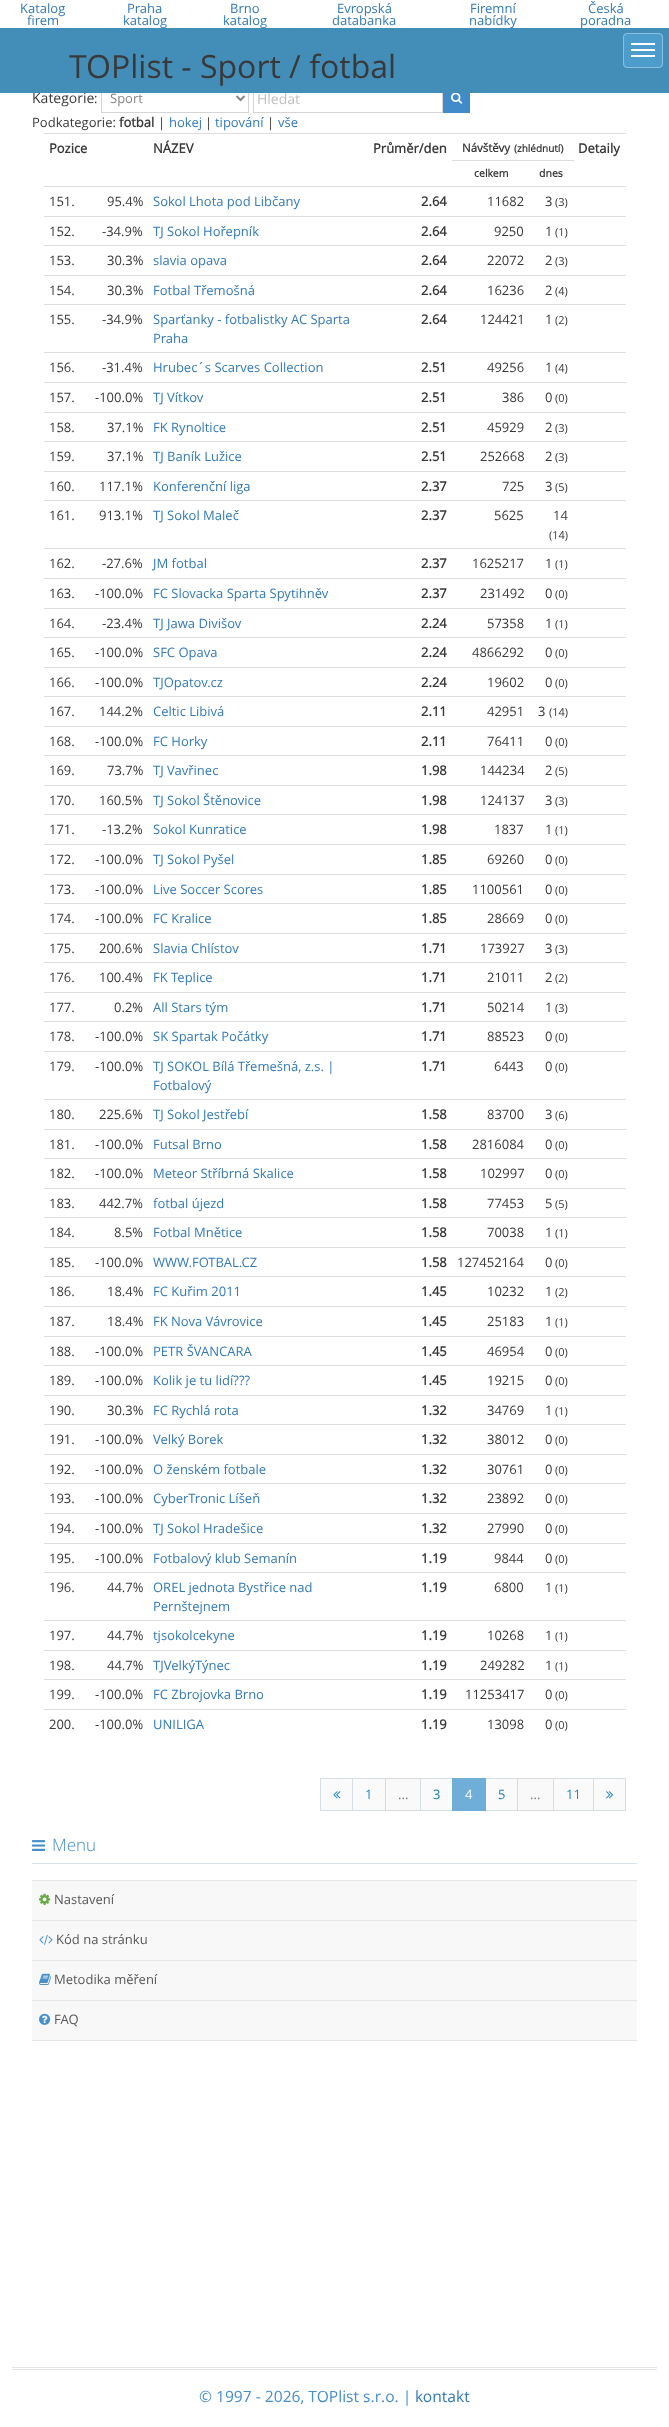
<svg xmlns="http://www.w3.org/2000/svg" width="669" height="2427">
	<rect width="100%" height="100%" fill="#FFFFFF" />
	<g font-family="Open Sans" font-size="13" fill="#337AB7">
		<text x="20" y="13">Katalog</text>
		<text x="27" y="25">firem</text>
		<text x="127" y="13">Praha</text>
	</g>
	<text x="32" y="103" font-family="Open Sans" font-size="14" fill="#393939">Kategorie</text>
	<rect x="101.5" y="83.5" width="147" height="29" fill="none" stroke="#D5D5D5" />
	<rect x="253.5" y="83.5" width="189" height="29" fill="none" stroke="#D5D5D5" />
	<rect x="0" y="28" width="669" height="65" fill="#438EB9" />
	<g font-family="Open Sans" font-size="13" fill="#337AB7">
		<text x="123" y="25">katalog</text>
		<text x="230" y="13">Brno</text>
		<text x="223" y="25">katalog</text>
		<text x="337" y="13">Evropská</text>
		<text x="332" y="25">databanka</text>
		<text x="470" y="13">Firemní</text>
		<text x="469" y="25">nabídky</text>
		<text x="588" y="13">Česká</text>
		<text x="580" y="25">poradna</text>
	</g>
	<text x="69" y="78" font-family="Open Sans" font-size="32" fill="#393939">TOPlist - Sport / fotbal</text>
	<rect x="623" y="33" width="40" height="35" rx="4" fill="#4D9DCC" />
	<rect x="623.5" y="33.5" width="39" height="34" rx="3.5" fill="none" stroke="#FFFFFF" stroke-opacity="0.35" />
	<rect x="631" y="43" width="24" height="2" fill="#FFFFFF" />
	<rect x="631" y="49" width="24" height="2" fill="#FFFFFF" />
	<rect x="631" y="55" width="24" height="2" fill="#FFFFFF" />
	<text x="94" y="103" font-family="Open Sans" font-size="13" fill="#393939">:</text>
	<path d="M236.5 96L240.5 100L244.5 96" fill="none" stroke="#858585" stroke-width="2" />
	<text x="110" y="103" font-family="Open Sans" font-size="13" fill="#858585">Sport</text>
	<text x="257" y="104" font-family="Open Sans" font-size="14" fill="#C0C0C0">Hledat</text>
	<rect x="443" y="93" width="27" height="20" fill="#428BCA" />
	<image x="451" y="93" width="12" height="11" href="assets/img1.png" />
	<text x="32" y="127" font-family="Open Sans" font-size="13" fill="#393939">Podkategorie:</text>
	<text x="119" y="127" font-family="Open Sans" font-size="13" font-weight="700" fill="#393939">fotbal</text>
	<text x="158" y="127" font-family="Open Sans" font-size="13" fill="#393939">|</text>
	<text x="169" y="127" font-family="Open Sans" font-size="13" fill="#337AB7">hokej</text>
	<text x="205" y="127" font-family="Open Sans" font-size="13" fill="#393939">|</text>
	<text x="215" y="127" font-family="Open Sans" font-size="13" fill="#337AB7">tipování</text>
	<text x="267" y="127" font-family="Open Sans" font-size="13" fill="#393939">|</text>
	<text x="278" y="127" font-family="Open Sans" font-size="13" fill="#337AB7">vše</text>
	<g font-family="Open Sans" font-size="13" font-weight="700" fill="#393939">
		<text x="49" y="153">Pozice</text>
		<text x="153" y="153">NÁZEV</text>
		<text x="373" y="153">Průměr/den</text>
	</g>
	<text x="462" y="152" font-family="Open Sans" font-size="11.5" font-weight="700" fill="#393939">Návštěvy</text>
	<text x="514" y="152" font-family="Open Sans" font-size="10" font-weight="700" fill="#393939">(zhlédnutí)</text>
	<rect x="44" y="133" width="582" height="1" fill="#DDDDDD" />
	<text x="578" y="153" font-family="Open Sans" font-size="13" font-weight="700" fill="#393939">Detaily</text>
	<text x="474" y="177" font-family="Open Sans" font-size="10.5" font-weight="700" fill="#393939">celkem</text>
	<rect x="452" y="160" width="122" height="1" fill="#DDDDDD" />
	<text x="539" y="177" font-family="Open Sans" font-size="10.5" font-weight="700" fill="#393939">dnes</text>
	<rect x="44" y="186" width="582" height="1" fill="#DDDDDD" />
	<g font-family="Open Sans" font-size="13" fill="#393939">
		<text x="49" y="206">151.</text>
		<text x="107" y="206">95.4%</text>
	</g>
	<text x="153" y="206" font-family="Open Sans" font-size="13" fill="#337AB7">Sokol Lhota pod Libčany</text>
	<text x="421" y="206" font-family="Open Sans" font-size="13" font-weight="700" fill="#393939">2.64</text>
	<g font-family="Open Sans" font-size="13" fill="#393939">
		<text x="487" y="206">11682</text>
		<text x="545" y="206">3</text>
	</g>
	<text x="555" y="206" font-family="Open Sans" font-size="11" fill="#393939">(3)</text>
	<rect x="44" y="216" width="582" height="1" fill="#DDDDDD" />
	<g font-family="Open Sans" font-size="13" fill="#393939">
		<text x="49" y="236">152.</text>
		<text x="102" y="236">-34.9%</text>
	</g>
	<text x="153" y="236" font-family="Open Sans" font-size="13" fill="#337AB7">TJ Sokol Hořepník</text>
	<text x="421" y="236" font-family="Open Sans" font-size="13" font-weight="700" fill="#393939">2.64</text>
	<g font-family="Open Sans" font-size="13" fill="#393939">
		<text x="494" y="236">9250</text>
		<text x="545" y="236">1</text>
	</g>
	<text x="555" y="236" font-family="Open Sans" font-size="11" fill="#393939">(1)</text>
	<rect x="44" y="245" width="582" height="1" fill="#DDDDDD" />
	<g font-family="Open Sans" font-size="13" fill="#393939">
		<text x="49" y="265">153.</text>
		<text x="107" y="265">30.3%</text>
	</g>
	<text x="153" y="265" font-family="Open Sans" font-size="13" fill="#337AB7">slavia opava</text>
	<text x="421" y="265" font-family="Open Sans" font-size="13" font-weight="700" fill="#393939">2.64</text>
	<g font-family="Open Sans" font-size="13" fill="#393939">
		<text x="487" y="265">22072</text>
		<text x="545" y="265">2</text>
	</g>
	<text x="555" y="265" font-family="Open Sans" font-size="11" fill="#393939">(3)</text>
	<rect x="44" y="275" width="582" height="1" fill="#DDDDDD" />
	<g font-family="Open Sans" font-size="13" fill="#393939">
		<text x="49" y="295">154.</text>
		<text x="107" y="295">30.3%</text>
	</g>
	<text x="153" y="295" font-family="Open Sans" font-size="13" fill="#337AB7">Fotbal Třemošná</text>
	<text x="421" y="295" font-family="Open Sans" font-size="13" font-weight="700" fill="#393939">2.64</text>
	<g font-family="Open Sans" font-size="13" fill="#393939">
		<text x="487" y="295">16236</text>
		<text x="545" y="295">2</text>
	</g>
	<text x="555" y="295" font-family="Open Sans" font-size="11" fill="#393939">(4)</text>
	<rect x="44" y="304" width="582" height="1" fill="#DDDDDD" />
	<g font-family="Open Sans" font-size="13" fill="#393939">
		<text x="49" y="324">155.</text>
		<text x="102" y="324">-34.9%</text>
	</g>
	<g font-family="Open Sans" font-size="13" fill="#337AB7">
		<text x="153" y="324">Sparťanky - fotbalistky AC Sparta</text>
		<text x="153" y="343">Praha</text>
	</g>
	<text x="421" y="324" font-family="Open Sans" font-size="13" font-weight="700" fill="#393939">2.64</text>
	<g font-family="Open Sans" font-size="13" fill="#393939">
		<text x="480" y="324">124421</text>
		<text x="545" y="324">1</text>
	</g>
	<text x="555" y="324" font-family="Open Sans" font-size="11" fill="#393939">(2)</text>
	<rect x="44" y="352" width="582" height="1" fill="#DDDDDD" />
	<g font-family="Open Sans" font-size="13" fill="#393939">
		<text x="49" y="372">156.</text>
		<text x="102" y="372">-31.4%</text>
	</g>
	<text x="153" y="372" font-family="Open Sans" font-size="13" fill="#337AB7">Hrubec´s Scarves Collection</text>
	<text x="421" y="372" font-family="Open Sans" font-size="13" font-weight="700" fill="#393939">2.51</text>
	<g font-family="Open Sans" font-size="13" fill="#393939">
		<text x="487" y="372">49256</text>
		<text x="545" y="372">1</text>
	</g>
	<text x="555" y="372" font-family="Open Sans" font-size="11" fill="#393939">(4)</text>
	<rect x="44" y="382" width="582" height="1" fill="#DDDDDD" />
	<g font-family="Open Sans" font-size="13" fill="#393939">
		<text x="49" y="402">157.</text>
		<text x="95" y="402">-100.0%</text>
	</g>
	<text x="153" y="402" font-family="Open Sans" font-size="13" fill="#337AB7">TJ Vítkov</text>
	<text x="421" y="402" font-family="Open Sans" font-size="13" font-weight="700" fill="#393939">2.51</text>
	<g font-family="Open Sans" font-size="13" fill="#393939">
		<text x="502" y="402">386</text>
		<text x="545" y="402">0</text>
	</g>
	<text x="555" y="402" font-family="Open Sans" font-size="11" fill="#393939">(0)</text>
	<rect x="44" y="412" width="582" height="1" fill="#DDDDDD" />
	<g font-family="Open Sans" font-size="13" fill="#393939">
		<text x="49" y="432">158.</text>
		<text x="107" y="432">37.1%</text>
	</g>
	<text x="153" y="432" font-family="Open Sans" font-size="13" fill="#337AB7">FK Rynoltice</text>
	<text x="421" y="432" font-family="Open Sans" font-size="13" font-weight="700" fill="#393939">2.51</text>
	<g font-family="Open Sans" font-size="13" fill="#393939">
		<text x="487" y="432">45929</text>
		<text x="545" y="432">2</text>
	</g>
	<text x="555" y="432" font-family="Open Sans" font-size="11" fill="#393939">(3)</text>
	<rect x="44" y="441" width="582" height="1" fill="#DDDDDD" />
	<g font-family="Open Sans" font-size="13" fill="#393939">
		<text x="49" y="461">159.</text>
		<text x="107" y="461">37.1%</text>
	</g>
	<text x="153" y="461" font-family="Open Sans" font-size="13" fill="#337AB7">TJ Baník Lužice</text>
	<text x="421" y="461" font-family="Open Sans" font-size="13" font-weight="700" fill="#393939">2.51</text>
	<g font-family="Open Sans" font-size="13" fill="#393939">
		<text x="480" y="461">252668</text>
		<text x="545" y="461">2</text>
	</g>
	<text x="555" y="461" font-family="Open Sans" font-size="11" fill="#393939">(3)</text>
	<rect x="44" y="471" width="582" height="1" fill="#DDDDDD" />
	<g font-family="Open Sans" font-size="13" fill="#393939">
		<text x="49" y="491">160.</text>
		<text x="99" y="491">117.1%</text>
	</g>
	<text x="153" y="491" font-family="Open Sans" font-size="13" fill="#337AB7">Konferenční liga</text>
	<text x="421" y="491" font-family="Open Sans" font-size="13" font-weight="700" fill="#393939">2.37</text>
	<g font-family="Open Sans" font-size="13" fill="#393939">
		<text x="502" y="491">725</text>
		<text x="545" y="491">3</text>
	</g>
	<text x="555" y="491" font-family="Open Sans" font-size="11" fill="#393939">(5)</text>
	<rect x="44" y="500" width="582" height="1" fill="#DDDDDD" />
	<g font-family="Open Sans" font-size="13" fill="#393939">
		<text x="49" y="520">161.</text>
		<text x="99" y="520">913.1%</text>
	</g>
	<text x="153" y="520" font-family="Open Sans" font-size="13" fill="#337AB7">TJ Sokol Maleč</text>
	<text x="421" y="520" font-family="Open Sans" font-size="13" font-weight="700" fill="#393939">2.37</text>
	<g font-family="Open Sans" font-size="13" fill="#393939">
		<text x="494" y="520">5625</text>
		<text x="553" y="520">14</text>
	</g>
	<text x="549" y="539" font-family="Open Sans" font-size="11" fill="#393939">(14)</text>
	<rect x="44" y="548" width="582" height="1" fill="#DDDDDD" />
	<g font-family="Open Sans" font-size="13" fill="#393939">
		<text x="49" y="568">162.</text>
		<text x="102" y="568">-27.6%</text>
	</g>
	<text x="153" y="568" font-family="Open Sans" font-size="13" fill="#337AB7">JM fotbal</text>
	<text x="421" y="568" font-family="Open Sans" font-size="13" font-weight="700" fill="#393939">2.37</text>
	<g font-family="Open Sans" font-size="13" fill="#393939">
		<text x="472" y="568">1625217</text>
		<text x="545" y="568">1</text>
	</g>
	<text x="555" y="568" font-family="Open Sans" font-size="11" fill="#393939">(1)</text>
	<rect x="44" y="578" width="582" height="1" fill="#DDDDDD" />
	<g font-family="Open Sans" font-size="13" fill="#393939">
		<text x="49" y="598">163.</text>
		<text x="95" y="598">-100.0%</text>
	</g>
	<text x="153" y="598" font-family="Open Sans" font-size="13" fill="#337AB7">FC Slovacka Sparta Spytihněv</text>
	<text x="421" y="598" font-family="Open Sans" font-size="13" font-weight="700" fill="#393939">2.37</text>
	<g font-family="Open Sans" font-size="13" fill="#393939">
		<text x="480" y="598">231492</text>
		<text x="545" y="598">0</text>
	</g>
	<text x="555" y="598" font-family="Open Sans" font-size="11" fill="#393939">(0)</text>
	<rect x="44" y="608" width="582" height="1" fill="#DDDDDD" />
	<g font-family="Open Sans" font-size="13" fill="#393939">
		<text x="49" y="628">164.</text>
		<text x="102" y="628">-23.4%</text>
	</g>
	<text x="153" y="628" font-family="Open Sans" font-size="13" fill="#337AB7">TJ Jawa Divišov</text>
	<text x="421" y="628" font-family="Open Sans" font-size="13" font-weight="700" fill="#393939">2.24</text>
	<g font-family="Open Sans" font-size="13" fill="#393939">
		<text x="487" y="628">57358</text>
		<text x="545" y="628">1</text>
	</g>
	<text x="555" y="628" font-family="Open Sans" font-size="11" fill="#393939">(1)</text>
	<rect x="44" y="637" width="582" height="1" fill="#DDDDDD" />
	<g font-family="Open Sans" font-size="13" fill="#393939">
		<text x="49" y="657">165.</text>
		<text x="95" y="657">-100.0%</text>
	</g>
	<text x="153" y="657" font-family="Open Sans" font-size="13" fill="#337AB7">SFC Opava</text>
	<text x="421" y="657" font-family="Open Sans" font-size="13" font-weight="700" fill="#393939">2.24</text>
	<g font-family="Open Sans" font-size="13" fill="#393939">
		<text x="472" y="657">4866292</text>
		<text x="545" y="657">0</text>
	</g>
	<text x="555" y="657" font-family="Open Sans" font-size="11" fill="#393939">(0)</text>
	<rect x="44" y="667" width="582" height="1" fill="#DDDDDD" />
	<g font-family="Open Sans" font-size="13" fill="#393939">
		<text x="49" y="687">166.</text>
		<text x="95" y="687">-100.0%</text>
	</g>
	<text x="153" y="687" font-family="Open Sans" font-size="13" fill="#337AB7">TJOpatov.cz</text>
	<text x="421" y="687" font-family="Open Sans" font-size="13" font-weight="700" fill="#393939">2.24</text>
	<g font-family="Open Sans" font-size="13" fill="#393939">
		<text x="487" y="687">19602</text>
		<text x="545" y="687">0</text>
	</g>
	<text x="555" y="687" font-family="Open Sans" font-size="11" fill="#393939">(0)</text>
	<rect x="44" y="696" width="582" height="1" fill="#DDDDDD" />
	<g font-family="Open Sans" font-size="13" fill="#393939">
		<text x="49" y="716">167.</text>
		<text x="99" y="716">144.2%</text>
	</g>
	<text x="153" y="716" font-family="Open Sans" font-size="13" fill="#337AB7">Celtic Libivá</text>
	<text x="421" y="716" font-family="Open Sans" font-size="13" font-weight="700" fill="#393939">2.11</text>
	<g font-family="Open Sans" font-size="13" fill="#393939">
		<text x="487" y="716">42951</text>
		<text x="538" y="716">3</text>
	</g>
	<text x="549" y="716" font-family="Open Sans" font-size="11" fill="#393939">(14)</text>
	<rect x="44" y="726" width="582" height="1" fill="#DDDDDD" />
	<g font-family="Open Sans" font-size="13" fill="#393939">
		<text x="49" y="746">168.</text>
		<text x="95" y="746">-100.0%</text>
	</g>
	<text x="153" y="746" font-family="Open Sans" font-size="13" fill="#337AB7">FC Horky</text>
	<text x="421" y="746" font-family="Open Sans" font-size="13" font-weight="700" fill="#393939">2.11</text>
	<g font-family="Open Sans" font-size="13" fill="#393939">
		<text x="487" y="746">76411</text>
		<text x="545" y="746">0</text>
	</g>
	<text x="555" y="746" font-family="Open Sans" font-size="11" fill="#393939">(0)</text>
	<rect x="44" y="755" width="582" height="1" fill="#DDDDDD" />
	<g font-family="Open Sans" font-size="13" fill="#393939">
		<text x="49" y="775">169.</text>
		<text x="107" y="775">73.7%</text>
	</g>
	<text x="153" y="775" font-family="Open Sans" font-size="13" fill="#337AB7">TJ Vavřinec</text>
	<text x="421" y="775" font-family="Open Sans" font-size="13" font-weight="700" fill="#393939">1.98</text>
	<g font-family="Open Sans" font-size="13" fill="#393939">
		<text x="480" y="775">144234</text>
		<text x="545" y="775">2</text>
	</g>
	<text x="555" y="775" font-family="Open Sans" font-size="11" fill="#393939">(5)</text>
	<rect x="44" y="785" width="582" height="1" fill="#DDDDDD" />
	<g font-family="Open Sans" font-size="13" fill="#393939">
		<text x="49" y="805">170.</text>
		<text x="99" y="805">160.5%</text>
	</g>
	<text x="153" y="805" font-family="Open Sans" font-size="13" fill="#337AB7">TJ Sokol Štěnovice</text>
	<text x="421" y="805" font-family="Open Sans" font-size="13" font-weight="700" fill="#393939">1.98</text>
	<g font-family="Open Sans" font-size="13" fill="#393939">
		<text x="480" y="805">124137</text>
		<text x="545" y="805">3</text>
	</g>
	<text x="555" y="805" font-family="Open Sans" font-size="11" fill="#393939">(3)</text>
	<rect x="44" y="814" width="582" height="1" fill="#DDDDDD" />
	<g font-family="Open Sans" font-size="13" fill="#393939">
		<text x="49" y="834">171.</text>
		<text x="102" y="834">-13.2%</text>
	</g>
	<text x="153" y="834" font-family="Open Sans" font-size="13" fill="#337AB7">Sokol Kunratice</text>
	<text x="421" y="834" font-family="Open Sans" font-size="13" font-weight="700" fill="#393939">1.98</text>
	<g font-family="Open Sans" font-size="13" fill="#393939">
		<text x="494" y="834">1837</text>
		<text x="545" y="834">1</text>
	</g>
	<text x="555" y="834" font-family="Open Sans" font-size="11" fill="#393939">(1)</text>
	<rect x="44" y="844" width="582" height="1" fill="#DDDDDD" />
	<g font-family="Open Sans" font-size="13" fill="#393939">
		<text x="49" y="864">172.</text>
		<text x="95" y="864">-100.0%</text>
	</g>
	<text x="153" y="864" font-family="Open Sans" font-size="13" fill="#337AB7">TJ Sokol Pyšel</text>
	<text x="421" y="864" font-family="Open Sans" font-size="13" font-weight="700" fill="#393939">1.85</text>
	<g font-family="Open Sans" font-size="13" fill="#393939">
		<text x="487" y="864">69260</text>
		<text x="545" y="864">0</text>
	</g>
	<text x="555" y="864" font-family="Open Sans" font-size="11" fill="#393939">(0)</text>
	<rect x="44" y="874" width="582" height="1" fill="#DDDDDD" />
	<g font-family="Open Sans" font-size="13" fill="#393939">
		<text x="49" y="894">173.</text>
		<text x="95" y="894">-100.0%</text>
	</g>
	<text x="153" y="894" font-family="Open Sans" font-size="13" fill="#337AB7">Live Soccer Scores</text>
	<text x="421" y="894" font-family="Open Sans" font-size="13" font-weight="700" fill="#393939">1.85</text>
	<g font-family="Open Sans" font-size="13" fill="#393939">
		<text x="472" y="894">1100561</text>
		<text x="545" y="894">0</text>
	</g>
	<text x="555" y="894" font-family="Open Sans" font-size="11" fill="#393939">(0)</text>
	<rect x="44" y="903" width="582" height="1" fill="#DDDDDD" />
	<g font-family="Open Sans" font-size="13" fill="#393939">
		<text x="49" y="923">174.</text>
		<text x="95" y="923">-100.0%</text>
	</g>
	<text x="153" y="923" font-family="Open Sans" font-size="13" fill="#337AB7">FC Kralice</text>
	<text x="421" y="923" font-family="Open Sans" font-size="13" font-weight="700" fill="#393939">1.85</text>
	<g font-family="Open Sans" font-size="13" fill="#393939">
		<text x="487" y="923">28669</text>
		<text x="545" y="923">0</text>
	</g>
	<text x="555" y="923" font-family="Open Sans" font-size="11" fill="#393939">(0)</text>
	<rect x="44" y="933" width="582" height="1" fill="#DDDDDD" />
	<g font-family="Open Sans" font-size="13" fill="#393939">
		<text x="49" y="953">175.</text>
		<text x="99" y="953">200.6%</text>
	</g>
	<text x="153" y="953" font-family="Open Sans" font-size="13" fill="#337AB7">Slavia Chlístov</text>
	<text x="421" y="953" font-family="Open Sans" font-size="13" font-weight="700" fill="#393939">1.71</text>
	<g font-family="Open Sans" font-size="13" fill="#393939">
		<text x="480" y="953">173927</text>
		<text x="545" y="953">3</text>
	</g>
	<text x="555" y="953" font-family="Open Sans" font-size="11" fill="#393939">(3)</text>
	<rect x="44" y="962" width="582" height="1" fill="#DDDDDD" />
	<g font-family="Open Sans" font-size="13" fill="#393939">
		<text x="49" y="982">176.</text>
		<text x="99" y="982">100.4%</text>
	</g>
	<text x="153" y="982" font-family="Open Sans" font-size="13" fill="#337AB7">FK Teplice</text>
	<text x="421" y="982" font-family="Open Sans" font-size="13" font-weight="700" fill="#393939">1.71</text>
	<g font-family="Open Sans" font-size="13" fill="#393939">
		<text x="487" y="982">21011</text>
		<text x="545" y="982">2</text>
	</g>
	<text x="555" y="982" font-family="Open Sans" font-size="11" fill="#393939">(2)</text>
	<rect x="44" y="992" width="582" height="1" fill="#DDDDDD" />
	<g font-family="Open Sans" font-size="13" fill="#393939">
		<text x="49" y="1012">177.</text>
		<text x="114" y="1012">0.2%</text>
	</g>
	<text x="153" y="1012" font-family="Open Sans" font-size="13" fill="#337AB7">All Stars tým</text>
	<text x="421" y="1012" font-family="Open Sans" font-size="13" font-weight="700" fill="#393939">1.71</text>
	<g font-family="Open Sans" font-size="13" fill="#393939">
		<text x="487" y="1012">50214</text>
		<text x="545" y="1012">1</text>
	</g>
	<text x="555" y="1012" font-family="Open Sans" font-size="11" fill="#393939">(3)</text>
	<rect x="44" y="1021" width="582" height="1" fill="#DDDDDD" />
	<g font-family="Open Sans" font-size="13" fill="#393939">
		<text x="49" y="1041">178.</text>
		<text x="95" y="1041">-100.0%</text>
	</g>
	<text x="153" y="1041" font-family="Open Sans" font-size="13" fill="#337AB7">SK Spartak Počátky</text>
	<text x="421" y="1041" font-family="Open Sans" font-size="13" font-weight="700" fill="#393939">1.71</text>
	<g font-family="Open Sans" font-size="13" fill="#393939">
		<text x="487" y="1041">88523</text>
		<text x="545" y="1041">0</text>
	</g>
	<text x="555" y="1041" font-family="Open Sans" font-size="11" fill="#393939">(0)</text>
	<rect x="44" y="1051" width="582" height="1" fill="#DDDDDD" />
	<g font-family="Open Sans" font-size="13" fill="#393939">
		<text x="49" y="1071">179.</text>
		<text x="95" y="1071">-100.0%</text>
	</g>
	<g font-family="Open Sans" font-size="13" fill="#337AB7">
		<text x="153" y="1071">TJ SOKOL Bílá Třemešná, z.s. |</text>
		<text x="153" y="1090">Fotbalový</text>
	</g>
	<text x="421" y="1071" font-family="Open Sans" font-size="13" font-weight="700" fill="#393939">1.71</text>
	<g font-family="Open Sans" font-size="13" fill="#393939">
		<text x="494" y="1071">6443</text>
		<text x="545" y="1071">0</text>
	</g>
	<text x="555" y="1071" font-family="Open Sans" font-size="11" fill="#393939">(0)</text>
	<rect x="44" y="1099" width="582" height="1" fill="#DDDDDD" />
	<g font-family="Open Sans" font-size="13" fill="#393939">
		<text x="49" y="1119">180.</text>
		<text x="99" y="1119">225.6%</text>
	</g>
	<text x="153" y="1119" font-family="Open Sans" font-size="13" fill="#337AB7">TJ Sokol Jestřebí</text>
	<text x="421" y="1119" font-family="Open Sans" font-size="13" font-weight="700" fill="#393939">1.58</text>
	<g font-family="Open Sans" font-size="13" fill="#393939">
		<text x="487" y="1119">83700</text>
		<text x="545" y="1119">3</text>
	</g>
	<text x="555" y="1119" font-family="Open Sans" font-size="11" fill="#393939">(6)</text>
	<rect x="44" y="1129" width="582" height="1" fill="#DDDDDD" />
	<g font-family="Open Sans" font-size="13" fill="#393939">
		<text x="49" y="1149">181.</text>
		<text x="95" y="1149">-100.0%</text>
	</g>
	<text x="153" y="1149" font-family="Open Sans" font-size="13" fill="#337AB7">Futsal Brno</text>
	<text x="421" y="1149" font-family="Open Sans" font-size="13" font-weight="700" fill="#393939">1.58</text>
	<g font-family="Open Sans" font-size="13" fill="#393939">
		<text x="472" y="1149">2816084</text>
		<text x="545" y="1149">0</text>
	</g>
	<text x="555" y="1149" font-family="Open Sans" font-size="11" fill="#393939">(0)</text>
	<rect x="44" y="1158" width="582" height="1" fill="#DDDDDD" />
	<g font-family="Open Sans" font-size="13" fill="#393939">
		<text x="49" y="1178">182.</text>
		<text x="95" y="1178">-100.0%</text>
	</g>
	<text x="153" y="1178" font-family="Open Sans" font-size="13" fill="#337AB7">Meteor Stříbrná Skalice</text>
	<text x="421" y="1178" font-family="Open Sans" font-size="13" font-weight="700" fill="#393939">1.58</text>
	<g font-family="Open Sans" font-size="13" fill="#393939">
		<text x="480" y="1178">102997</text>
		<text x="545" y="1178">0</text>
	</g>
	<text x="555" y="1178" font-family="Open Sans" font-size="11" fill="#393939">(0)</text>
	<rect x="44" y="1188" width="582" height="1" fill="#DDDDDD" />
	<g font-family="Open Sans" font-size="13" fill="#393939">
		<text x="49" y="1208">183.</text>
		<text x="99" y="1208">442.7%</text>
	</g>
	<text x="153" y="1208" font-family="Open Sans" font-size="13" fill="#337AB7">fotbal újezd</text>
	<text x="421" y="1208" font-family="Open Sans" font-size="13" font-weight="700" fill="#393939">1.58</text>
	<g font-family="Open Sans" font-size="13" fill="#393939">
		<text x="487" y="1208">77453</text>
		<text x="545" y="1208">5</text>
	</g>
	<text x="555" y="1208" font-family="Open Sans" font-size="11" fill="#393939">(5)</text>
	<rect x="44" y="1217" width="582" height="1" fill="#DDDDDD" />
	<g font-family="Open Sans" font-size="13" fill="#393939">
		<text x="49" y="1237">184.</text>
		<text x="114" y="1237">8.5%</text>
	</g>
	<text x="153" y="1237" font-family="Open Sans" font-size="13" fill="#337AB7">Fotbal Mnětice</text>
	<text x="421" y="1237" font-family="Open Sans" font-size="13" font-weight="700" fill="#393939">1.58</text>
	<g font-family="Open Sans" font-size="13" fill="#393939">
		<text x="487" y="1237">70038</text>
		<text x="545" y="1237">1</text>
	</g>
	<text x="555" y="1237" font-family="Open Sans" font-size="11" fill="#393939">(1)</text>
	<rect x="44" y="1247" width="582" height="1" fill="#DDDDDD" />
	<g font-family="Open Sans" font-size="13" fill="#393939">
		<text x="49" y="1267">185.</text>
		<text x="95" y="1267">-100.0%</text>
	</g>
	<text x="153" y="1267" font-family="Open Sans" font-size="13" fill="#337AB7">WWW.FOTBAL.CZ</text>
	<text x="421" y="1267" font-family="Open Sans" font-size="13" font-weight="700" fill="#393939">1.58</text>
	<g font-family="Open Sans" font-size="13" fill="#393939">
		<text x="457" y="1267">127452164</text>
		<text x="545" y="1267">0</text>
	</g>
	<text x="555" y="1267" font-family="Open Sans" font-size="11" fill="#393939">(0)</text>
	<rect x="44" y="1276" width="582" height="1" fill="#DDDDDD" />
	<g font-family="Open Sans" font-size="13" fill="#393939">
		<text x="49" y="1296">186.</text>
		<text x="107" y="1296">18.4%</text>
	</g>
	<text x="153" y="1296" font-family="Open Sans" font-size="13" fill="#337AB7">FC Kuřim 2011</text>
	<text x="421" y="1296" font-family="Open Sans" font-size="13" font-weight="700" fill="#393939">1.45</text>
	<g font-family="Open Sans" font-size="13" fill="#393939">
		<text x="487" y="1296">10232</text>
		<text x="545" y="1296">1</text>
	</g>
	<text x="555" y="1296" font-family="Open Sans" font-size="11" fill="#393939">(2)</text>
	<rect x="44" y="1306" width="582" height="1" fill="#DDDDDD" />
	<g font-family="Open Sans" font-size="13" fill="#393939">
		<text x="49" y="1326">187.</text>
		<text x="107" y="1326">18.4%</text>
	</g>
	<text x="153" y="1326" font-family="Open Sans" font-size="13" fill="#337AB7">FK Nova Vávrovice</text>
	<text x="421" y="1326" font-family="Open Sans" font-size="13" font-weight="700" fill="#393939">1.45</text>
	<g font-family="Open Sans" font-size="13" fill="#393939">
		<text x="487" y="1326">25183</text>
		<text x="545" y="1326">1</text>
	</g>
	<text x="555" y="1326" font-family="Open Sans" font-size="11" fill="#393939">(1)</text>
	<rect x="44" y="1336" width="582" height="1" fill="#DDDDDD" />
	<g font-family="Open Sans" font-size="13" fill="#393939">
		<text x="49" y="1356">188.</text>
		<text x="95" y="1356">-100.0%</text>
	</g>
	<text x="153" y="1356" font-family="Open Sans" font-size="13" fill="#337AB7">PETR ŠVANCARA</text>
	<text x="421" y="1356" font-family="Open Sans" font-size="13" font-weight="700" fill="#393939">1.45</text>
	<g font-family="Open Sans" font-size="13" fill="#393939">
		<text x="487" y="1356">46954</text>
		<text x="545" y="1356">0</text>
	</g>
	<text x="555" y="1356" font-family="Open Sans" font-size="11" fill="#393939">(0)</text>
	<rect x="44" y="1365" width="582" height="1" fill="#DDDDDD" />
	<g font-family="Open Sans" font-size="13" fill="#393939">
		<text x="49" y="1385">189.</text>
		<text x="95" y="1385">-100.0%</text>
	</g>
	<text x="153" y="1385" font-family="Open Sans" font-size="13" fill="#337AB7">Kolik je tu lidí???</text>
	<text x="421" y="1385" font-family="Open Sans" font-size="13" font-weight="700" fill="#393939">1.45</text>
	<g font-family="Open Sans" font-size="13" fill="#393939">
		<text x="487" y="1385">19215</text>
		<text x="545" y="1385">0</text>
	</g>
	<text x="555" y="1385" font-family="Open Sans" font-size="11" fill="#393939">(0)</text>
	<rect x="44" y="1395" width="582" height="1" fill="#DDDDDD" />
	<g font-family="Open Sans" font-size="13" fill="#393939">
		<text x="49" y="1415">190.</text>
		<text x="107" y="1415">30.3%</text>
	</g>
	<text x="153" y="1415" font-family="Open Sans" font-size="13" fill="#337AB7">FC Rychlá rota</text>
	<text x="421" y="1415" font-family="Open Sans" font-size="13" font-weight="700" fill="#393939">1.32</text>
	<g font-family="Open Sans" font-size="13" fill="#393939">
		<text x="487" y="1415">34769</text>
		<text x="545" y="1415">1</text>
	</g>
	<text x="555" y="1415" font-family="Open Sans" font-size="11" fill="#393939">(1)</text>
	<rect x="44" y="1424" width="582" height="1" fill="#DDDDDD" />
	<g font-family="Open Sans" font-size="13" fill="#393939">
		<text x="49" y="1444">191.</text>
		<text x="95" y="1444">-100.0%</text>
	</g>
	<text x="153" y="1444" font-family="Open Sans" font-size="13" fill="#337AB7">Velký Borek</text>
	<text x="421" y="1444" font-family="Open Sans" font-size="13" font-weight="700" fill="#393939">1.32</text>
	<g font-family="Open Sans" font-size="13" fill="#393939">
		<text x="487" y="1444">38012</text>
		<text x="545" y="1444">0</text>
	</g>
	<text x="555" y="1444" font-family="Open Sans" font-size="11" fill="#393939">(0)</text>
	<rect x="44" y="1454" width="582" height="1" fill="#DDDDDD" />
	<g font-family="Open Sans" font-size="13" fill="#393939">
		<text x="49" y="1474">192.</text>
		<text x="95" y="1474">-100.0%</text>
	</g>
	<text x="153" y="1474" font-family="Open Sans" font-size="13" fill="#337AB7">O ženském fotbale</text>
	<text x="421" y="1474" font-family="Open Sans" font-size="13" font-weight="700" fill="#393939">1.32</text>
	<g font-family="Open Sans" font-size="13" fill="#393939">
		<text x="487" y="1474">30761</text>
		<text x="545" y="1474">0</text>
	</g>
	<text x="555" y="1474" font-family="Open Sans" font-size="11" fill="#393939">(0)</text>
	<rect x="44" y="1483" width="582" height="1" fill="#DDDDDD" />
	<g font-family="Open Sans" font-size="13" fill="#393939">
		<text x="49" y="1503">193.</text>
		<text x="95" y="1503">-100.0%</text>
	</g>
	<text x="153" y="1503" font-family="Open Sans" font-size="13" fill="#337AB7">CyberTronic Líšeň</text>
	<text x="421" y="1503" font-family="Open Sans" font-size="13" font-weight="700" fill="#393939">1.32</text>
	<g font-family="Open Sans" font-size="13" fill="#393939">
		<text x="487" y="1503">23892</text>
		<text x="545" y="1503">0</text>
	</g>
	<text x="555" y="1503" font-family="Open Sans" font-size="11" fill="#393939">(0)</text>
	<rect x="44" y="1513" width="582" height="1" fill="#DDDDDD" />
	<g font-family="Open Sans" font-size="13" fill="#393939">
		<text x="49" y="1533">194.</text>
		<text x="95" y="1533">-100.0%</text>
	</g>
	<text x="153" y="1533" font-family="Open Sans" font-size="13" fill="#337AB7">TJ Sokol Hradešice</text>
	<text x="421" y="1533" font-family="Open Sans" font-size="13" font-weight="700" fill="#393939">1.32</text>
	<g font-family="Open Sans" font-size="13" fill="#393939">
		<text x="487" y="1533">27990</text>
		<text x="545" y="1533">0</text>
	</g>
	<text x="555" y="1533" font-family="Open Sans" font-size="11" fill="#393939">(0)</text>
	<rect x="44" y="1543" width="582" height="1" fill="#DDDDDD" />
	<g font-family="Open Sans" font-size="13" fill="#393939">
		<text x="49" y="1563">195.</text>
		<text x="95" y="1563">-100.0%</text>
	</g>
	<text x="153" y="1563" font-family="Open Sans" font-size="13" fill="#337AB7">Fotbalový klub Semanín</text>
	<text x="421" y="1563" font-family="Open Sans" font-size="13" font-weight="700" fill="#393939">1.19</text>
	<g font-family="Open Sans" font-size="13" fill="#393939">
		<text x="494" y="1563">9844</text>
		<text x="545" y="1563">0</text>
	</g>
	<text x="555" y="1563" font-family="Open Sans" font-size="11" fill="#393939">(0)</text>
	<rect x="44" y="1572" width="582" height="1" fill="#DDDDDD" />
	<g font-family="Open Sans" font-size="13" fill="#393939">
		<text x="49" y="1592">196.</text>
		<text x="107" y="1592">44.7%</text>
	</g>
	<g font-family="Open Sans" font-size="13" fill="#337AB7">
		<text x="153" y="1592">OREL jednota Bystřice nad</text>
		<text x="153" y="1611">Pernštejnem</text>
	</g>
	<text x="421" y="1592" font-family="Open Sans" font-size="13" font-weight="700" fill="#393939">1.19</text>
	<g font-family="Open Sans" font-size="13" fill="#393939">
		<text x="494" y="1592">6800</text>
		<text x="545" y="1592">1</text>
	</g>
	<text x="555" y="1592" font-family="Open Sans" font-size="11" fill="#393939">(1)</text>
	<rect x="44" y="1620" width="582" height="1" fill="#DDDDDD" />
	<g font-family="Open Sans" font-size="13" fill="#393939">
		<text x="49" y="1640">197.</text>
		<text x="107" y="1640">44.7%</text>
	</g>
	<text x="153" y="1640" font-family="Open Sans" font-size="13" fill="#337AB7">tjsokolcekyne</text>
	<text x="421" y="1640" font-family="Open Sans" font-size="13" font-weight="700" fill="#393939">1.19</text>
	<g font-family="Open Sans" font-size="13" fill="#393939">
		<text x="487" y="1640">10268</text>
		<text x="545" y="1640">1</text>
	</g>
	<text x="555" y="1640" font-family="Open Sans" font-size="11" fill="#393939">(1)</text>
	<rect x="44" y="1650" width="582" height="1" fill="#DDDDDD" />
	<g font-family="Open Sans" font-size="13" fill="#393939">
		<text x="49" y="1670">198.</text>
		<text x="107" y="1670">44.7%</text>
	</g>
	<text x="153" y="1670" font-family="Open Sans" font-size="13" fill="#337AB7">TJVelkýTýnec</text>
	<text x="421" y="1670" font-family="Open Sans" font-size="13" font-weight="700" fill="#393939">1.19</text>
	<g font-family="Open Sans" font-size="13" fill="#393939">
		<text x="480" y="1670">249282</text>
		<text x="545" y="1670">1</text>
	</g>
	<text x="555" y="1670" font-family="Open Sans" font-size="11" fill="#393939">(1)</text>
	<rect x="44" y="1679" width="582" height="1" fill="#DDDDDD" />
	<g font-family="Open Sans" font-size="13" fill="#393939">
		<text x="49" y="1699">199.</text>
		<text x="95" y="1699">-100.0%</text>
	</g>
	<text x="153" y="1699" font-family="Open Sans" font-size="13" fill="#337AB7">FC Zbrojovka Brno</text>
	<text x="421" y="1699" font-family="Open Sans" font-size="13" font-weight="700" fill="#393939">1.19</text>
	<g font-family="Open Sans" font-size="13" fill="#393939">
		<text x="465" y="1699">11253417</text>
		<text x="545" y="1699">0</text>
	</g>
	<text x="555" y="1699" font-family="Open Sans" font-size="11" fill="#393939">(0)</text>
	<rect x="44" y="1709" width="582" height="1" fill="#DDDDDD" />
	<g font-family="Open Sans" font-size="13" fill="#393939">
		<text x="49" y="1729">200.</text>
		<text x="95" y="1729">-100.0%</text>
	</g>
	<text x="153" y="1729" font-family="Open Sans" font-size="13" fill="#337AB7">UNILIGA</text>
	<text x="421" y="1729" font-family="Open Sans" font-size="13" font-weight="700" fill="#393939">1.19</text>
	<g font-family="Open Sans" font-size="13" fill="#393939">
		<text x="487" y="1729">13098</text>
		<text x="545" y="1729">0</text>
	</g>
	<text x="555" y="1729" font-family="Open Sans" font-size="11" fill="#393939">(0)</text>
	<rect x="320.5" y="1778.5" width="32" height="32" fill="#FAFAFA" stroke="#D4DFE3" />
	<image x="333" y="1791" width="8" height="8" href="assets/img2.png" />
	<rect x="352.5" y="1778.5" width="33" height="32" fill="#FAFAFA" stroke="#D4DFE3" />
	<text x="365" y="1799" font-family="Open Sans" font-size="13" fill="#2283C5">1</text>
	<rect x="385.5" y="1778.5" width="35" height="32" fill="#F9F9F9" stroke="#D9D9D9" />
	<text x="398" y="1799" font-family="Open Sans" font-size="13" fill="#777777">...</text>
	<rect x="420.5" y="1778.5" width="32" height="32" fill="#FAFAFA" stroke="#D4DFE3" />
	<text x="433" y="1799" font-family="Open Sans" font-size="13" fill="#2283C5">3</text>
	<rect x="485.5" y="1778.5" width="32" height="32" fill="#FAFAFA" stroke="#D4DFE3" />
	<rect x="452" y="1778" width="34" height="33" fill="#6FAED9" />
	<text x="465" y="1799" font-family="Open Sans" font-size="13" fill="#FFFFFF">4</text>
	<text x="498" y="1799" font-family="Open Sans" font-size="13" fill="#2283C5">5</text>
	<rect x="517.5" y="1778.5" width="36" height="32" fill="#F9F9F9" stroke="#D9D9D9" />
	<text x="530" y="1799" font-family="Open Sans" font-size="13" fill="#777777">...</text>
	<rect x="553.5" y="1778.5" width="40" height="32" fill="#FAFAFA" stroke="#D4DFE3" />
	<text x="566" y="1799" font-family="Open Sans" font-size="13" fill="#2283C5">11</text>
	<rect x="593.5" y="1778.5" width="32" height="32" fill="#FAFAFA" stroke="#D4DFE3" />
	<image x="606" y="1791" width="8" height="8" href="assets/img3.png" />
	<rect x="32" y="1863" width="605" height="1" fill="#D5E3EF" />
	<image x="32" y="1840" width="14" height="11" href="assets/img4.png" />
	<text x="52" y="1851" font-family="Open Sans" font-size="17" font-weight="300" fill="#478FCA">Menu</text>
	<rect x="32" y="1880" width="605" height="1" fill="#E5E5E5" />
	<rect x="32" y="1881" width="605" height="39" fill="#F8F8F8" />
	<image x="39" y="1893" width="12" height="12" href="assets/img5.png" />
	<text x="54" y="1904" font-family="Open Sans" font-size="13" fill="#585858">Nastavení</text>
	<rect x="32" y="1920" width="605" height="1" fill="#E5E5E5" />
	<rect x="32" y="1921" width="605" height="39" fill="#F8F8F8" />
	<image x="39" y="1934" width="14" height="11" href="assets/img6.png" />
	<text x="56" y="1944" font-family="Open Sans" font-size="13" fill="#585858">Kód na stránku</text>
	<rect x="32" y="1960" width="605" height="1" fill="#E5E5E5" />
	<rect x="32" y="1961" width="605" height="39" fill="#F8F8F8" />
	<image x="39" y="1973" width="12" height="12" href="assets/img7.png" />
	<text x="54" y="1984" font-family="Open Sans" font-size="13" fill="#585858">Metodika měření</text>
	<rect x="32" y="2000" width="605" height="1" fill="#E5E5E5" />
	<rect x="32" y="2040" width="605" height="1" fill="#E5E5E5" />
	<rect x="32" y="2001" width="605" height="39" fill="#F8F8F8" />
	<image x="39" y="2013" width="12" height="12" href="assets/img8.png" />
	<text x="54" y="2024" font-family="Open Sans" font-size="13" fill="#585858">FAQ</text>
	<rect x="12" y="2367" width="645" height="1" fill="#E5E5E5" />
	<rect x="12" y="2369" width="645" height="1" fill="#E5E5E5" />
	<text x="199" y="2402" font-family="Open Sans" font-size="15.6" fill="#478FCA">© 1997 - 2026, TOPlist s.r.o. |</text>
	<text x="415" y="2402" font-family="Open Sans" font-size="15.6" fill="#337AB7">kontakt</text>
</svg>
